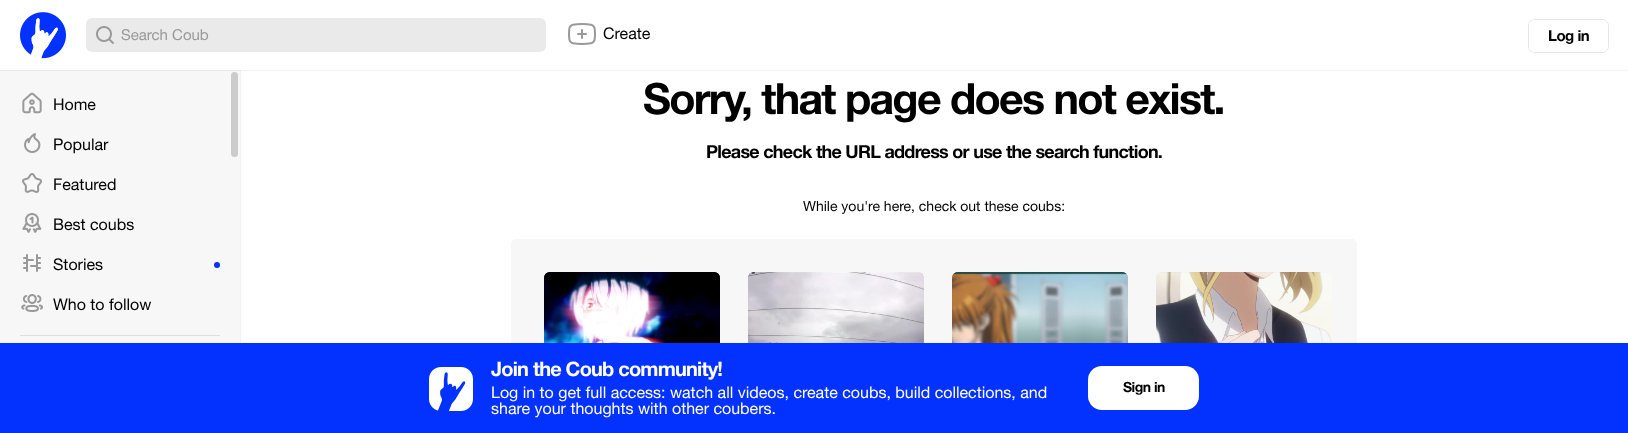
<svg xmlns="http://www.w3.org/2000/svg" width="1628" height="433">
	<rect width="100%" height="100%" fill="#FFFFFF" />
	<rect x="-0.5" y="-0.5" width="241" height="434" fill="none" stroke="#F2F2F2" />
	<rect x="0" y="70" width="240" height="273" fill="#F7F7F7" />
	<rect x="0" y="70" width="1628" height="1" fill="#000000" fill-opacity="0.05" />
	<rect x="240" y="0" width="1" height="70" fill="#FFFFFF" />
	<image x="20" y="12" width="46" height="47" href="assets/img1.png" />
	<rect x="86" y="18" width="460" height="34" rx="6" fill="#EAEAEA" />
	<image x="96" y="26" width="18" height="18" href="assets/img2.png" />
	<text x="121" y="40" font-family="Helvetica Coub" font-size="15" fill="#999999">Search Coub</text>
	<image x="568" y="23" width="28" height="22" href="assets/img3.png" />
	<text x="603" y="39" font-family="Helvetica Coub" font-size="16" fill="#000000">Create</text>
	<rect x="1528.5" y="19.5" width="80" height="33" rx="6.5" fill="none" stroke="#E6E6E6" />
	<rect x="1529" y="20" width="79" height="32" rx="6" fill="#FFFFFF" />
	<text x="1548" y="41" font-family="Helvetica Coub" font-size="15" font-weight="700" letter-spacing="-0.5" fill="#000000">Log in</text>
	<image x="22" y="92" width="20" height="22" href="assets/img4.png" />
	<text x="53" y="110" font-family="Helvetica Coub" font-size="16" fill="#000000">Home</text>
	<image x="24" y="133" width="17" height="20" href="assets/img5.png" />
	<text x="53" y="150" font-family="Helvetica Coub" font-size="16" fill="#000000">Popular</text>
	<image x="22" y="173" width="20" height="20" href="assets/img6.png" />
	<text x="53" y="190" font-family="Helvetica Coub" font-size="16" fill="#000000">Featured</text>
	<image x="22" y="213" width="20" height="20" href="assets/img7.png" />
	<text x="53" y="230" font-family="Helvetica Coub" font-size="16" fill="#000000">Best coubs</text>
	<image x="23" y="254" width="18" height="18" href="assets/img8.png" />
	<text x="53" y="270" font-family="Helvetica Coub" font-size="16" fill="#000000">Stories</text>
	<circle cx="217" cy="265" r="3" fill="#0332FF" />
	<image x="21" y="294" width="22" height="18" href="assets/img9.png" />
	<text x="53" y="310" font-family="Helvetica Coub" font-size="16" fill="#000000">Who to follow</text>
	<rect x="20" y="335" width="200" height="1" fill="#DEDEDE" />
	<rect x="231" y="72" width="7" height="85" rx="3.5" fill="#CCCCCC" />
	<text x="643" y="114" font-family="Helvetica Coub" font-size="43" font-weight="700" letter-spacing="-1.75" fill="#000000">Sorry, that page does not exist.</text>
	<text x="706" y="158" font-family="Helvetica Coub" font-size="18" font-weight="700" letter-spacing="-0.72" fill="#000000">Please check the URL address or use the search function.</text>
	<text x="803" y="211" font-family="Helvetica Coub" font-size="14" fill="#000000">While you're here, check out these coubs:</text>
	<rect x="511" y="239" width="846" height="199" rx="5" fill="#F7F7F7" />
	<image x="544" y="272" width="176" height="6" href="assets/img10.png" />
	<image x="544" y="272" width="176" height="71" href="assets/img11.png" />
	<image x="748" y="272" width="176" height="6" href="assets/img12.png" />
	<image x="748" y="272" width="176" height="71" href="assets/img13.png" />
	<image x="952" y="272" width="176" height="6" href="assets/img14.png" />
	<image x="952" y="272" width="176" height="71" href="assets/img15.png" />
	<image x="1156" y="272" width="176" height="71" href="assets/img16.png" />
	<image x="1156" y="272" width="6" height="71" href="assets/img17.png" />
	<rect x="0" y="343" width="1628" height="90" fill="#0332FF" />
	<image x="429" y="367" width="44" height="44" href="assets/img18.png" />
	<text x="491" y="376" font-family="Helvetica Coub" font-size="20" font-weight="700" letter-spacing="-0.8" fill="#FFFFFF">Join the Coub community!</text>
	<g font-family="Helvetica Coub" font-size="16" fill="#FFFFFF">
		<text x="491" y="398">Log in to get full access: watch all videos, create coubs, build collections, and</text>
		<text x="491" y="414">share your thoughts with other coubers.</text>
	</g>
	<rect x="1088" y="366" width="111" height="44" rx="14" fill="#FFFFFF" />
	<text x="1123" y="392" font-family="Helvetica Coub" font-size="14" font-weight="700" letter-spacing="-0.5" fill="#000000">Sign in</text>
</svg>
